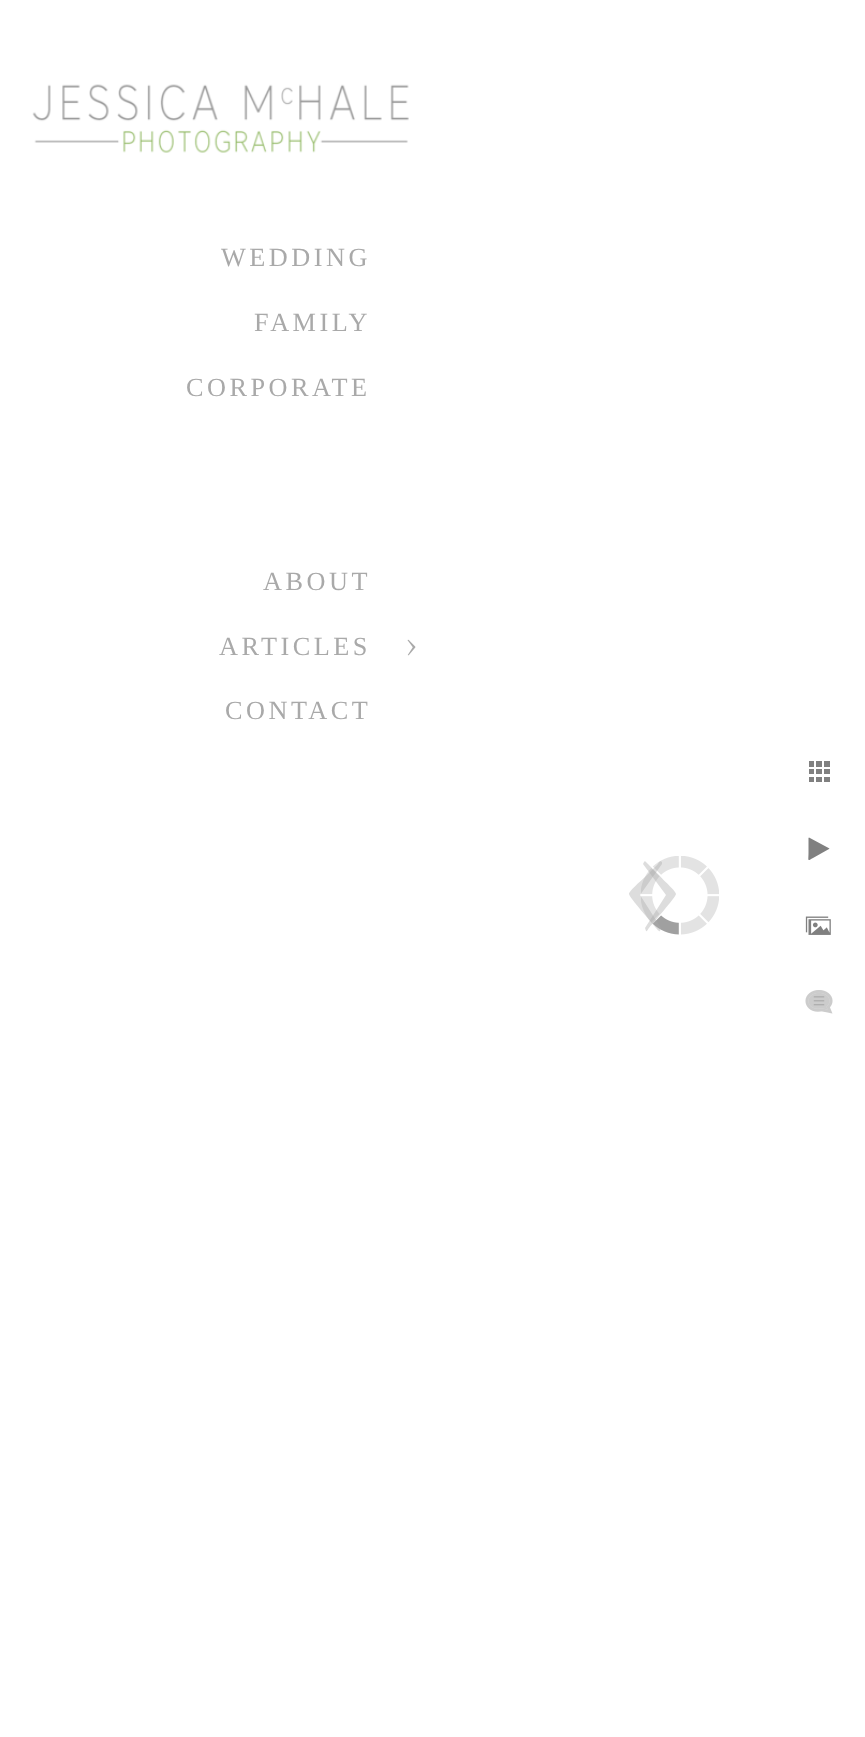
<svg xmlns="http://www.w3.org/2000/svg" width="865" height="1737">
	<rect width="100%" height="100%" fill="#FFFFFF" />
	<image x="32" y="84" width="377" height="69" href="assets/img1.png" />
	<g font-family="Liberation Serif" font-size="26.25" letter-spacing="3.5" fill="#A9A9A9">
		<text x="221" y="266">WEDDING</text>
		<text x="254" y="331">FAMILY</text>
		<text x="186" y="396">CORPORATE</text>
		<text x="263" y="590">ABOUT</text>
		<text x="219" y="655">ARTICLES</text>
	</g>
	<image x="407" y="639" width="9" height="17" href="assets/img2.png" />
	<text x="225" y="719" font-family="Liberation Serif" font-size="26.25" letter-spacing="3.5" fill="#A9A9A9">CONTACT</text>
	<image x="641" y="856" width="78" height="79" href="assets/img3.png" />
	<path d="M629 894C629 891 643 879 646 876L658 864C659 862 660 860 662 862V864L640 895L661 928L660 931C659 932 657 929 656 928C653 924 629 897 629 894Z" fill="#A9A9A9" fill-opacity="0.4" />
	<path d="M676 894C676 891 662 879 660 876L648 864C646 862 645 860 644 862L643 864L666 895L645 928L646 931C647 932 648 929 649 928C652 924 676 897 676 894Z" fill="#A9A9A9" fill-opacity="0.4" />
	<image x="809" y="761" width="21" height="21" href="assets/img4.png" />
	<path d="M829 849L813 858C807 861.5 808.5 861 808.5 852.5V838L809 837.5L829.5 848.5Z" fill="#808080" />
	<image x="805" y="916" width="26" height="19" href="assets/img5.png" />
	<image x="805" y="990" width="28" height="24" href="assets/img6.png" />
</svg>
